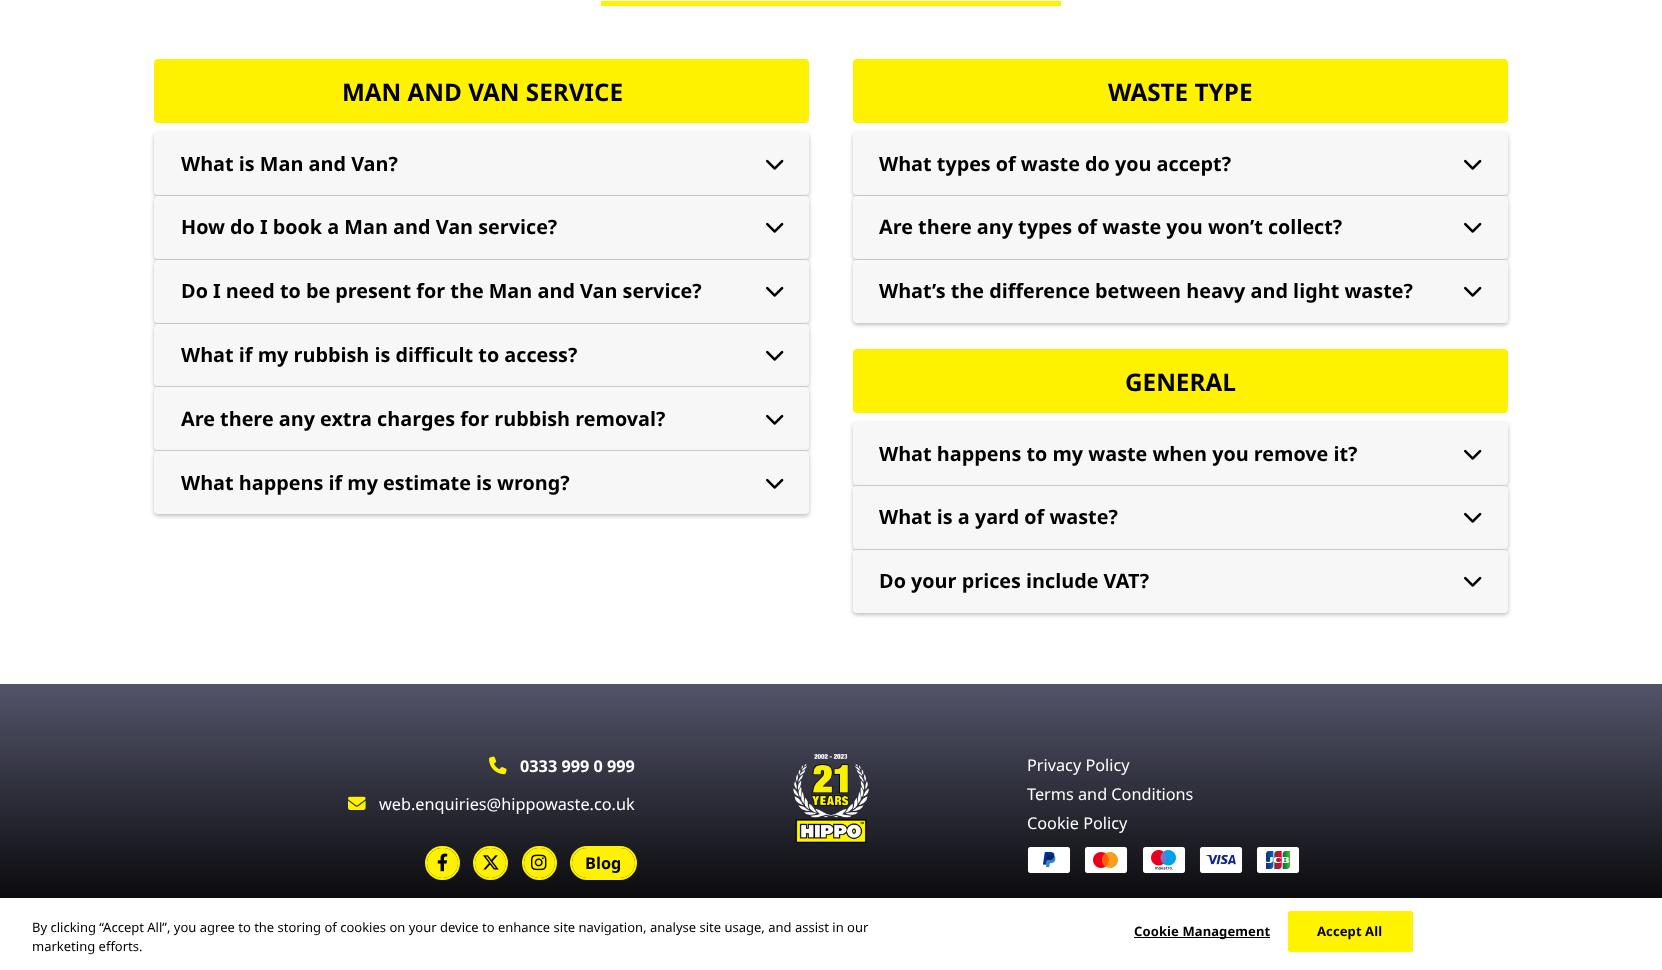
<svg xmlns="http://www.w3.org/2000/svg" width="1662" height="970">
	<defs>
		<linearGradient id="g1" gradientUnits="userSpaceOnUse" x1="831" y1="684" x2="831" y2="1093"><stop offset="0" stop-color="#53546A" /><stop offset="0.6" stop-color="#000000" /></linearGradient>
	</defs>
	<rect width="100%" height="100%" fill="#FFFFFF" />
	<rect x="601" y="1" width="460" height="5" fill="#FFF200" />
	<rect x="154" y="59" width="655" height="64" rx="4" fill="#FFF200" />
	<text x="342" y="101" font-family="Noto Sans" font-size="24.25" font-weight="700" fill="#000000">MAN AND VAN SERVICE</text>
	<rect x="154" y="134" width="655" height="63" rx="4" fill="#000000" fill-opacity="0.25" filter="blur(2px)" />
	<rect x="154" y="132" width="655" height="63" rx="4" fill="#F7F7F7" />
	<text x="181" y="171" font-family="Noto Sans" font-size="19.8" font-weight="700" fill="#000000">What is Man and Van?</text>
	<image x="766" y="159" width="18" height="11" href="assets/img1.png" />
	<rect x="154" y="198" width="655" height="63" rx="4" fill="#000000" fill-opacity="0.25" filter="blur(2px)" />
	<rect x="154" y="196" width="655" height="63" rx="4" fill="#F7F7F7" />
	<text x="181" y="234" font-family="Noto Sans" font-size="19.8" font-weight="700" fill="#000000">How do I book a Man and Van service?</text>
	<image x="766" y="222" width="18" height="11" href="assets/img1.png" />
	<rect x="154" y="262" width="655" height="63" rx="4" fill="#000000" fill-opacity="0.25" filter="blur(2px)" />
	<rect x="154" y="260" width="655" height="63" rx="4" fill="#F7F7F7" />
	<text x="181" y="298" font-family="Noto Sans" font-size="19.8" font-weight="700" fill="#000000">Do I need to be present for the Man and Van service?</text>
	<image x="766" y="286" width="18" height="11" href="assets/img1.png" />
	<rect x="154" y="326" width="655" height="62" rx="4" fill="#000000" fill-opacity="0.25" filter="blur(2px)" />
	<rect x="154" y="324" width="655" height="62" rx="4" fill="#F7F7F7" />
	<text x="181" y="362" font-family="Noto Sans" font-size="19.8" font-weight="700" fill="#000000">What if my rubbish is difficult to access?</text>
	<image x="766" y="350" width="18" height="11" href="assets/img1.png" />
	<rect x="154" y="389" width="655" height="63" rx="4" fill="#000000" fill-opacity="0.25" filter="blur(2px)" />
	<rect x="154" y="387" width="655" height="63" rx="4" fill="#F7F7F7" />
	<text x="181" y="426" font-family="Noto Sans" font-size="19.8" font-weight="700" fill="#000000">Are there any extra charges for rubbish removal?</text>
	<image x="766" y="414" width="18" height="11" href="assets/img1.png" />
	<rect x="154" y="453" width="655" height="63" rx="4" fill="#000000" fill-opacity="0.25" filter="blur(2px)" />
	<rect x="154" y="451" width="655" height="63" rx="4" fill="#F7F7F7" />
	<text x="181" y="490" font-family="Noto Sans" font-size="19.8" font-weight="700" fill="#000000">What happens if my estimate is wrong?</text>
	<image x="766" y="478" width="18" height="11" href="assets/img1.png" />
	<rect x="853" y="59" width="655" height="64" rx="4" fill="#FFF200" />
	<text x="1108" y="101" font-family="Noto Sans" font-size="24.25" font-weight="700" fill="#000000">WASTE TYPE</text>
	<rect x="853" y="134" width="655" height="63" rx="4" fill="#000000" fill-opacity="0.25" filter="blur(2px)" />
	<rect x="853" y="132" width="655" height="63" rx="4" fill="#F7F7F7" />
	<text x="879" y="171" font-family="Noto Sans" font-size="19.8" font-weight="700" fill="#000000">What types of waste do you accept?</text>
	<image x="1464" y="159" width="18" height="11" href="assets/img1.png" />
	<rect x="853" y="198" width="655" height="63" rx="4" fill="#000000" fill-opacity="0.25" filter="blur(2px)" />
	<rect x="853" y="196" width="655" height="63" rx="4" fill="#F7F7F7" />
	<text x="879" y="234" font-family="Noto Sans" font-size="19.8" font-weight="700" fill="#000000">Are there any types of waste you won’t collect?</text>
	<image x="1464" y="222" width="18" height="11" href="assets/img1.png" />
	<rect x="853" y="262" width="655" height="63" rx="4" fill="#000000" fill-opacity="0.25" filter="blur(2px)" />
	<rect x="853" y="260" width="655" height="63" rx="4" fill="#F7F7F7" />
	<text x="879" y="298" font-family="Noto Sans" font-size="19.8" font-weight="700" fill="#000000">What’s the difference between heavy and light waste?</text>
	<image x="1464" y="286" width="18" height="11" href="assets/img1.png" />
	<rect x="853" y="349" width="655" height="64" rx="4" fill="#FFF200" />
	<text x="1125" y="391" font-family="Noto Sans" font-size="24.25" font-weight="700" fill="#000000">GENERAL</text>
	<rect x="853" y="424" width="655" height="63" rx="4" fill="#000000" fill-opacity="0.25" filter="blur(2px)" />
	<rect x="853" y="422" width="655" height="63" rx="4" fill="#F7F7F7" />
	<text x="879" y="461" font-family="Noto Sans" font-size="19.8" font-weight="700" fill="#000000">What happens to my waste when you remove it?</text>
	<image x="1464" y="449" width="18" height="11" href="assets/img1.png" />
	<rect x="853" y="488" width="655" height="63" rx="4" fill="#000000" fill-opacity="0.25" filter="blur(2px)" />
	<rect x="853" y="486" width="655" height="63" rx="4" fill="#F7F7F7" />
	<text x="879" y="524" font-family="Noto Sans" font-size="19.8" font-weight="700" fill="#000000">What is a yard of waste?</text>
	<image x="1464" y="512" width="18" height="11" href="assets/img1.png" />
	<rect x="853" y="552" width="655" height="63" rx="4" fill="#000000" fill-opacity="0.25" filter="blur(2px)" />
	<rect x="853" y="550" width="655" height="63" rx="4" fill="#F7F7F7" />
	<text x="879" y="588" font-family="Noto Sans" font-size="19.8" font-weight="700" fill="#000000">Do your prices include VAT?</text>
	<image x="1464" y="576" width="18" height="11" href="assets/img1.png" />
	<rect x="0" y="684" width="1662" height="214" fill="url(#g1)" />
	<image x="489" y="756" width="18" height="19" href="assets/img2.png" />
	<text x="520" y="772" font-family="Noto Sans" font-size="16.25" font-weight="700" fill="#FFFFFF">0333 999 0 999</text>
	<image x="348" y="796" width="18" height="14" href="assets/img3.png" />
	<text x="379" y="810" font-family="Noto Sans" font-size="16.25" fill="#FFFFFF">web.enquiries@hippowaste.co.uk</text>
	<rect x="426" y="847" width="33" height="32" rx="16" fill="none" stroke="#FFF200" stroke-width="2" />
	<rect x="427" y="848" width="31" height="30" rx="15" fill="#FFF200" />
	<image x="437" y="853" width="11" height="19" href="assets/img4.png" />
	<rect x="474" y="847" width="33" height="32" rx="16" fill="none" stroke="#FFF200" stroke-width="2" />
	<rect x="475" y="848" width="31" height="30" rx="15" fill="#FFF200" />
	<image x="483" y="855" width="16" height="15" href="assets/img5.png" />
	<rect x="523" y="847" width="33" height="32" rx="16" fill="none" stroke="#FFF200" stroke-width="2" />
	<rect x="524" y="848" width="31" height="30" rx="15" fill="#FFF200" />
	<image x="531" y="854" width="16" height="17" href="assets/img6.png" />
	<rect x="571" y="847" width="65" height="32" rx="16" fill="none" stroke="#FFF200" stroke-width="2" />
	<rect x="572" y="848" width="63" height="30" rx="15" fill="#FFF200" />
	<text x="585" y="869" font-family="Noto Sans" font-size="16.25" font-weight="700" fill="#000000">Blog</text>
	<image x="793" y="754" width="76" height="89" href="assets/img7.png" />
	<g font-family="Noto Sans" font-size="16.25" fill="#FFFFFF">
		<text x="1027" y="771">Privacy Policy</text>
		<text x="1027" y="800">Terms and Conditions</text>
		<text x="1027" y="829">Cookie Policy</text>
	</g>
	<image x="1027" y="847" width="44" height="27" href="assets/img8.png" />
	<image x="1084" y="847" width="44" height="27" href="assets/img9.png" />
	<image x="1142" y="847" width="44" height="27" href="assets/img10.png" />
	<image x="1199" y="847" width="44" height="27" href="assets/img11.png" />
	<image x="1256" y="847" width="44" height="27" href="assets/img12.png" />
	<g font-family="Noto Sans" font-size="13" fill="#000000">
		<text x="32" y="932">By clicking “Accept All”, you agree to the storing of cookies on your device to enhance site navigation, analyse site usage, and assist in our</text>
		<text x="32" y="951">marketing efforts.</text>
	</g>
	<rect x="1134" y="937" width="136" height="1" fill="#000000" />
	<text x="1134" y="936" font-family="'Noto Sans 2'" font-size="13" font-weight="700" letter-spacing="0.1" fill="#000000">Cookie Management</text>
	<rect x="1288.5" y="911.5" width="124" height="40" rx="1.5" fill="#FFF300" stroke="#FFF300" />
	<text x="1317" y="936" font-family="'Noto Sans 2'" font-size="13" font-weight="700" letter-spacing="0.1" fill="#000000">Accept All</text>
</svg>
